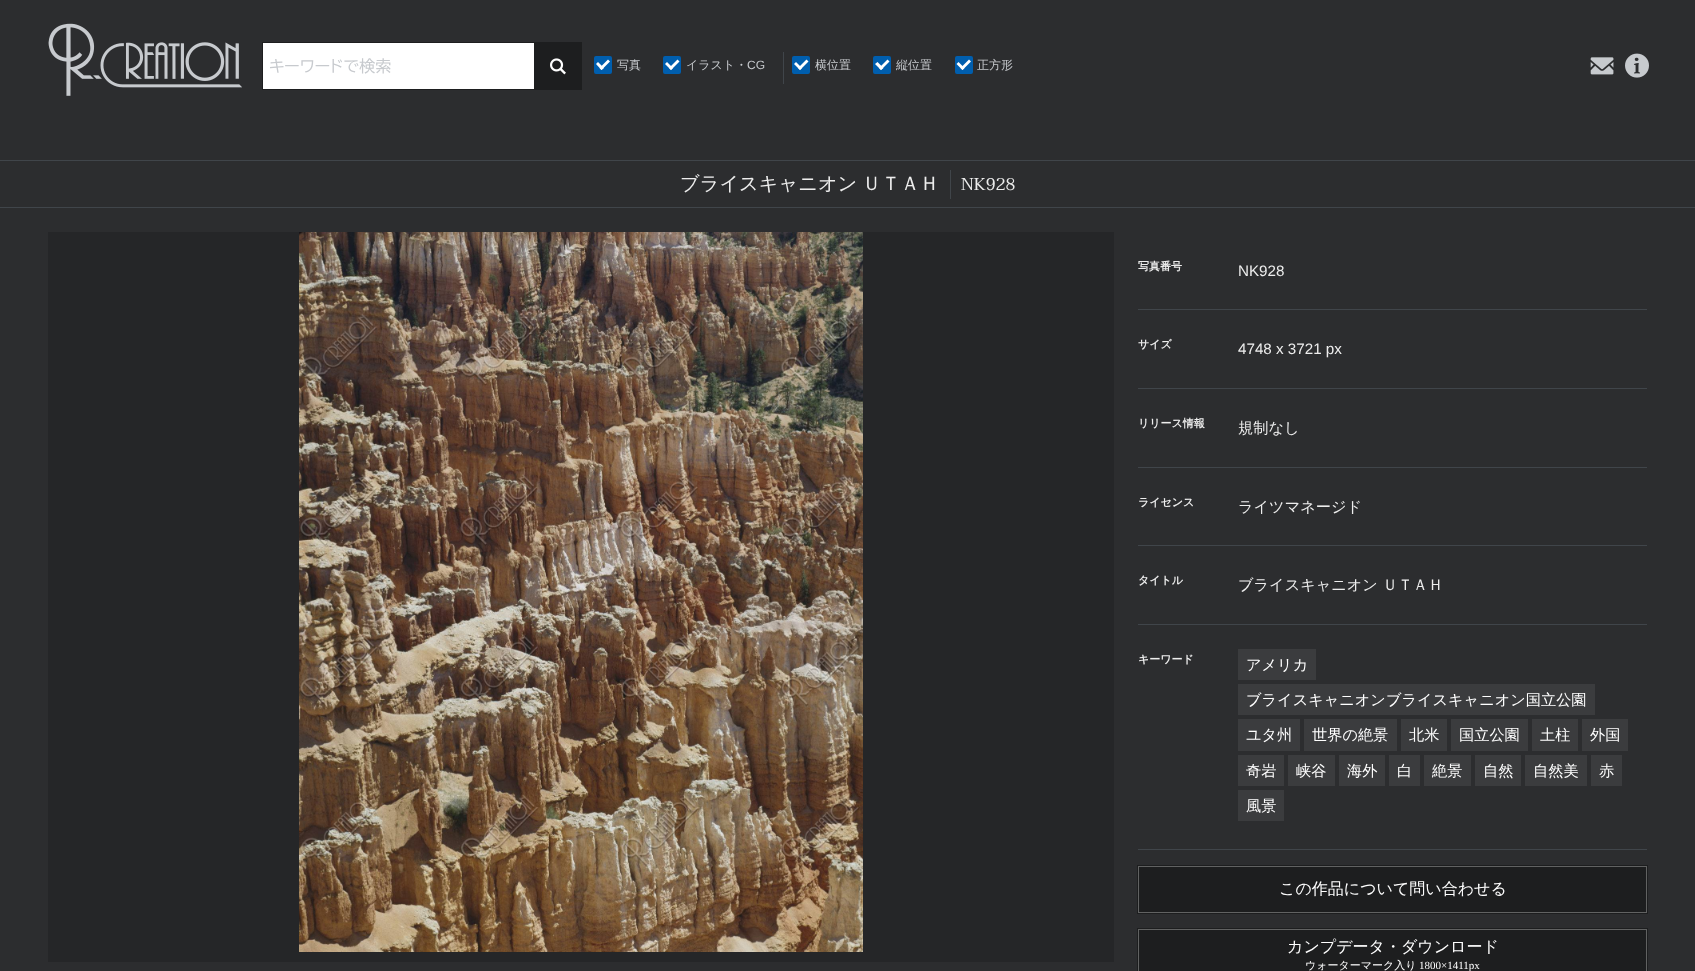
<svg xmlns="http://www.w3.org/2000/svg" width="1695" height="971">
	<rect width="100%" height="100%" fill="#2C2D2F" />
	<image x="48" y="23" width="194" height="73" href="assets/img1.png" />
	<rect x="263" y="43" width="271" height="46" fill="#FFFFFF" />
	<rect x="262.5" y="42.5" width="319" height="47" fill="none" stroke="#1D1E1F" />
	<text x="269" y="72" font-family="BIZ UDPGothic" font-size="16" fill="#C7CACE">キーワードで検索</text>
	<rect x="534" y="43" width="47" height="46" fill="#1D1E1F" />
	<image x="550" y="58" width="16" height="17" href="assets/img2.png" />
	<rect x="595" y="57" width="16" height="16" rx="1" fill="#005EAE" stroke="#005EAE" stroke-width="2" />
	<path d="M599.5 68L608 59.5L610 61.5L601.5 70Z" fill="#FFFFFF" />
	<path d="M596 64L598 62L604 68L601.5 70Z" fill="#FFFFFF" />
	<text x="617" y="69" font-family="WenQuanYi Zen Hei" font-size="12" font-weight="500" fill="#C7CACE">写真</text>
	<rect x="664" y="57" width="16" height="16" rx="1" fill="#005EAE" stroke="#005EAE" stroke-width="2" />
	<path d="M669 68L677.5 59.5L679.5 61.5L671 70Z" fill="#FFFFFF" />
	<path d="M665 64L667 62L673 68L671 70Z" fill="#FFFFFF" />
	<text x="686" y="69" font-family="WenQuanYi Zen Hei" font-size="12" font-weight="500" fill="#C7CACE">イラスト・</text>
	<text x="747" y="69" font-family="Liberation Sans" font-size="12" fill="#C7CACE">CG</text>
	<rect x="783" y="52" width="1" height="32" fill="#40454A" />
	<rect x="793" y="57" width="16" height="16" rx="1" fill="#005EAE" stroke="#005EAE" stroke-width="2" />
	<path d="M798 68L806.5 59.5L808.5 61.5L800 70Z" fill="#FFFFFF" />
	<path d="M794 64L796 62L802 68L800 70Z" fill="#FFFFFF" />
	<text x="815" y="69" font-family="WenQuanYi Zen Hei" font-size="12" font-weight="500" fill="#C7CACE">横位置</text>
	<rect x="874" y="57" width="16" height="16" rx="1" fill="#005EAE" stroke="#005EAE" stroke-width="2" />
	<path d="M879 68L887.5 59.5L889.5 61.5L881 70Z" fill="#FFFFFF" />
	<path d="M875 64L877.5 62L883.5 68L881 70Z" fill="#FFFFFF" />
	<text x="896" y="69" font-family="WenQuanYi Zen Hei" font-size="12" font-weight="500" fill="#C7CACE">縦位置</text>
	<rect x="956" y="57" width="16" height="16" rx="1" fill="#005EAE" stroke="#005EAE" stroke-width="2" />
	<text x="977" y="69" font-family="WenQuanYi Zen Hei" font-size="12" font-weight="500" fill="#C7CACE">正方形</text>
	<path d="M960.5 68L969 59.5L971 61.5L962.5 70Z" fill="#FFFFFF" />
	<path d="M956.5 64L958.5 62L964.5 68L962.5 70Z" fill="#FFFFFF" />
	<image x="1590" y="57" width="24" height="18" href="assets/img3.png" />
	<image x="1625" y="53" width="24" height="25" href="assets/img4.png" />
	<rect x="0" y="160" width="1695" height="1" fill="#40454A" />
	<rect x="0" y="207" width="1695" height="1" fill="#40454A" />
	<text x="680" y="190" word-spacing="-1" font-family="WenQuanYi Zen Hei" font-size="19.25" font-weight="500" fill="#EDEDED">ブライスキャニオン ＵＴＡＨ</text>
	<text x="961" y="190" font-family="Taviraj" font-size="17" fill="#EDEDED">NK928</text>
	<rect x="950" y="170" width="1" height="29" fill="#40454A" />
	<rect x="48" y="232" width="1066" height="730" fill="#252628" />
	<image x="299" y="232" width="564" height="720" href="assets/img5.png" />
	<rect x="1138" y="309" width="509" height="1" fill="#40454A" />
	<text x="1138" y="270" font-family="WenQuanYi Zen Hei" font-size="11" font-weight="700" fill="#EDEDED">写真番号</text>
	<text x="1238" y="276" font-family="Liberation Sans" font-size="15.2" fill="#EDEDED">NK928</text>
	<rect x="1138" y="388" width="509" height="1" fill="#40454A" />
	<text x="1138" y="348" font-family="WenQuanYi Zen Hei" font-size="11" font-weight="700" fill="#EDEDED">サイズ</text>
	<text x="1238" y="354" font-family="Liberation Sans" font-size="15.2" fill="#EDEDED">4748 x 3721 px</text>
	<rect x="1138" y="467" width="509" height="1" fill="#40454A" />
	<text x="1138" y="427" font-family="WenQuanYi Zen Hei" font-size="11" font-weight="700" fill="#EDEDED">リリース情報</text>
	<text x="1238" y="433" font-family="WenQuanYi Zen Hei" font-size="15.2" font-weight="500" fill="#EDEDED">規制なし</text>
	<rect x="1138" y="545" width="509" height="1" fill="#40454A" />
	<text x="1138" y="506" font-family="WenQuanYi Zen Hei" font-size="11" font-weight="700" fill="#EDEDED">ライセンス</text>
	<text x="1238" y="512" font-family="WenQuanYi Zen Hei" font-size="15.2" font-weight="500" fill="#EDEDED">ライツマネージド</text>
	<rect x="1138" y="624" width="509" height="1" fill="#40454A" />
	<text x="1138" y="584" font-family="WenQuanYi Zen Hei" font-size="11" font-weight="700" fill="#EDEDED">タイトル</text>
	<text x="1238" y="590" font-family="WenQuanYi Zen Hei" font-size="15.2" font-weight="500" fill="#EDEDED">ブライスキャニオン ＵＴＡＨ</text>
	<rect x="1138" y="849" width="509" height="1" fill="#40454A" />
	<text x="1138" y="663" font-family="WenQuanYi Zen Hei" font-size="11" font-weight="700" fill="#EDEDED">キーワード</text>
	<rect x="1238" y="649" width="78" height="31" fill="#3B3C3E" />
	<text x="1246" y="670" font-family="WenQuanYi Zen Hei" font-size="15.2" font-weight="500" fill="#FFFFFF">アメリカ</text>
	<rect x="1238" y="684" width="357" height="31" fill="#3B3C3E" />
	<text x="1246" y="705" font-family="WenQuanYi Zen Hei" font-size="15.2" font-weight="500" fill="#FFFFFF">ブライスキャニオンブライスキャニオン国立公園</text>
	<rect x="1238" y="719" width="62" height="32" fill="#3B3C3E" />
	<text x="1246" y="740" font-family="WenQuanYi Zen Hei" font-size="15.2" font-weight="500" fill="#FFFFFF">ユタ州</text>
	<rect x="1304" y="719" width="93" height="32" fill="#3B3C3E" />
	<text x="1312" y="740" font-family="WenQuanYi Zen Hei" font-size="15.2" font-weight="500" fill="#FFFFFF">世界の絶景</text>
	<rect x="1401" y="719" width="46" height="32" fill="#3B3C3E" />
	<text x="1409" y="740" font-family="WenQuanYi Zen Hei" font-size="15.2" font-weight="500" fill="#FFFFFF">北米</text>
	<rect x="1451" y="719" width="77" height="32" fill="#3B3C3E" />
	<text x="1459" y="740" font-family="WenQuanYi Zen Hei" font-size="15.2" font-weight="500" fill="#FFFFFF">国立公園</text>
	<rect x="1532" y="719" width="46" height="32" fill="#3B3C3E" />
	<text x="1540" y="740" font-family="WenQuanYi Zen Hei" font-size="15.2" font-weight="500" fill="#FFFFFF">土柱</text>
	<rect x="1582" y="719" width="46" height="32" fill="#3B3C3E" />
	<text x="1590" y="740" font-family="WenQuanYi Zen Hei" font-size="15.2" font-weight="500" fill="#FFFFFF">外国</text>
	<rect x="1238" y="755" width="46" height="31" fill="#3B3C3E" />
	<text x="1246" y="776" font-family="WenQuanYi Zen Hei" font-size="15.2" font-weight="500" fill="#FFFFFF">奇岩</text>
	<rect x="1288" y="755" width="47" height="31" fill="#3B3C3E" />
	<text x="1296" y="776" font-family="WenQuanYi Zen Hei" font-size="15.2" font-weight="500" fill="#FFFFFF">峡谷</text>
	<rect x="1339" y="755" width="46" height="31" fill="#3B3C3E" />
	<text x="1347" y="776" font-family="WenQuanYi Zen Hei" font-size="15.2" font-weight="500" fill="#FFFFFF">海外</text>
	<rect x="1389" y="755" width="31" height="31" fill="#3B3C3E" />
	<text x="1397" y="776" font-family="WenQuanYi Zen Hei" font-size="15.2" font-weight="500" fill="#FFFFFF">白</text>
	<rect x="1424" y="755" width="47" height="31" fill="#3B3C3E" />
	<text x="1432" y="776" font-family="WenQuanYi Zen Hei" font-size="15.2" font-weight="500" fill="#FFFFFF">絶景</text>
	<rect x="1475" y="755" width="46" height="31" fill="#3B3C3E" />
	<text x="1483" y="776" font-family="WenQuanYi Zen Hei" font-size="15.2" font-weight="500" fill="#FFFFFF">自然</text>
	<rect x="1525" y="755" width="62" height="31" fill="#3B3C3E" />
	<text x="1533" y="776" font-family="WenQuanYi Zen Hei" font-size="15.2" font-weight="500" fill="#FFFFFF">自然美</text>
	<rect x="1591" y="755" width="31" height="31" fill="#3B3C3E" />
	<text x="1599" y="776" font-family="WenQuanYi Zen Hei" font-size="15.2" font-weight="500" fill="#FFFFFF">赤</text>
	<rect x="1238" y="790" width="46" height="31" fill="#3B3C3E" />
	<text x="1246" y="811" font-family="WenQuanYi Zen Hei" font-size="15.2" font-weight="500" fill="#FFFFFF">風景</text>
	<rect x="1137.5" y="865.5" width="510" height="48" fill="none" stroke="#1D1E1F" />
	<rect x="1138.5" y="866.5" width="508" height="46" fill="#1D1E1F" stroke="#616262" />
	<text x="1279" y="894" font-family="WenQuanYi Zen Hei" font-size="16" font-weight="500" fill="#FFFFFF">この作品について問い合わせる</text>
	<rect x="1137.5" y="928.5" width="510" height="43" fill="none" stroke="#1D1E1F" />
	<rect x="1138.5" y="929.5" width="508" height="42" fill="#1D1E1F" stroke="#616262" />
	<text x="1287" y="952" font-family="WenQuanYi Zen Hei" font-size="16" font-weight="500" fill="#FFFFFF">カンプデータ・ダウンロード</text>
	<text x="1305" y="969" font-family="WenQuanYi Zen Hei" font-size="11" font-weight="500" fill="#FFFFFF">ウォーターマーク入り</text>
	<text x="1419" y="969" font-family="Liberation Serif" font-size="11" fill="#FFFFFF">1800×1411px</text>
</svg>
